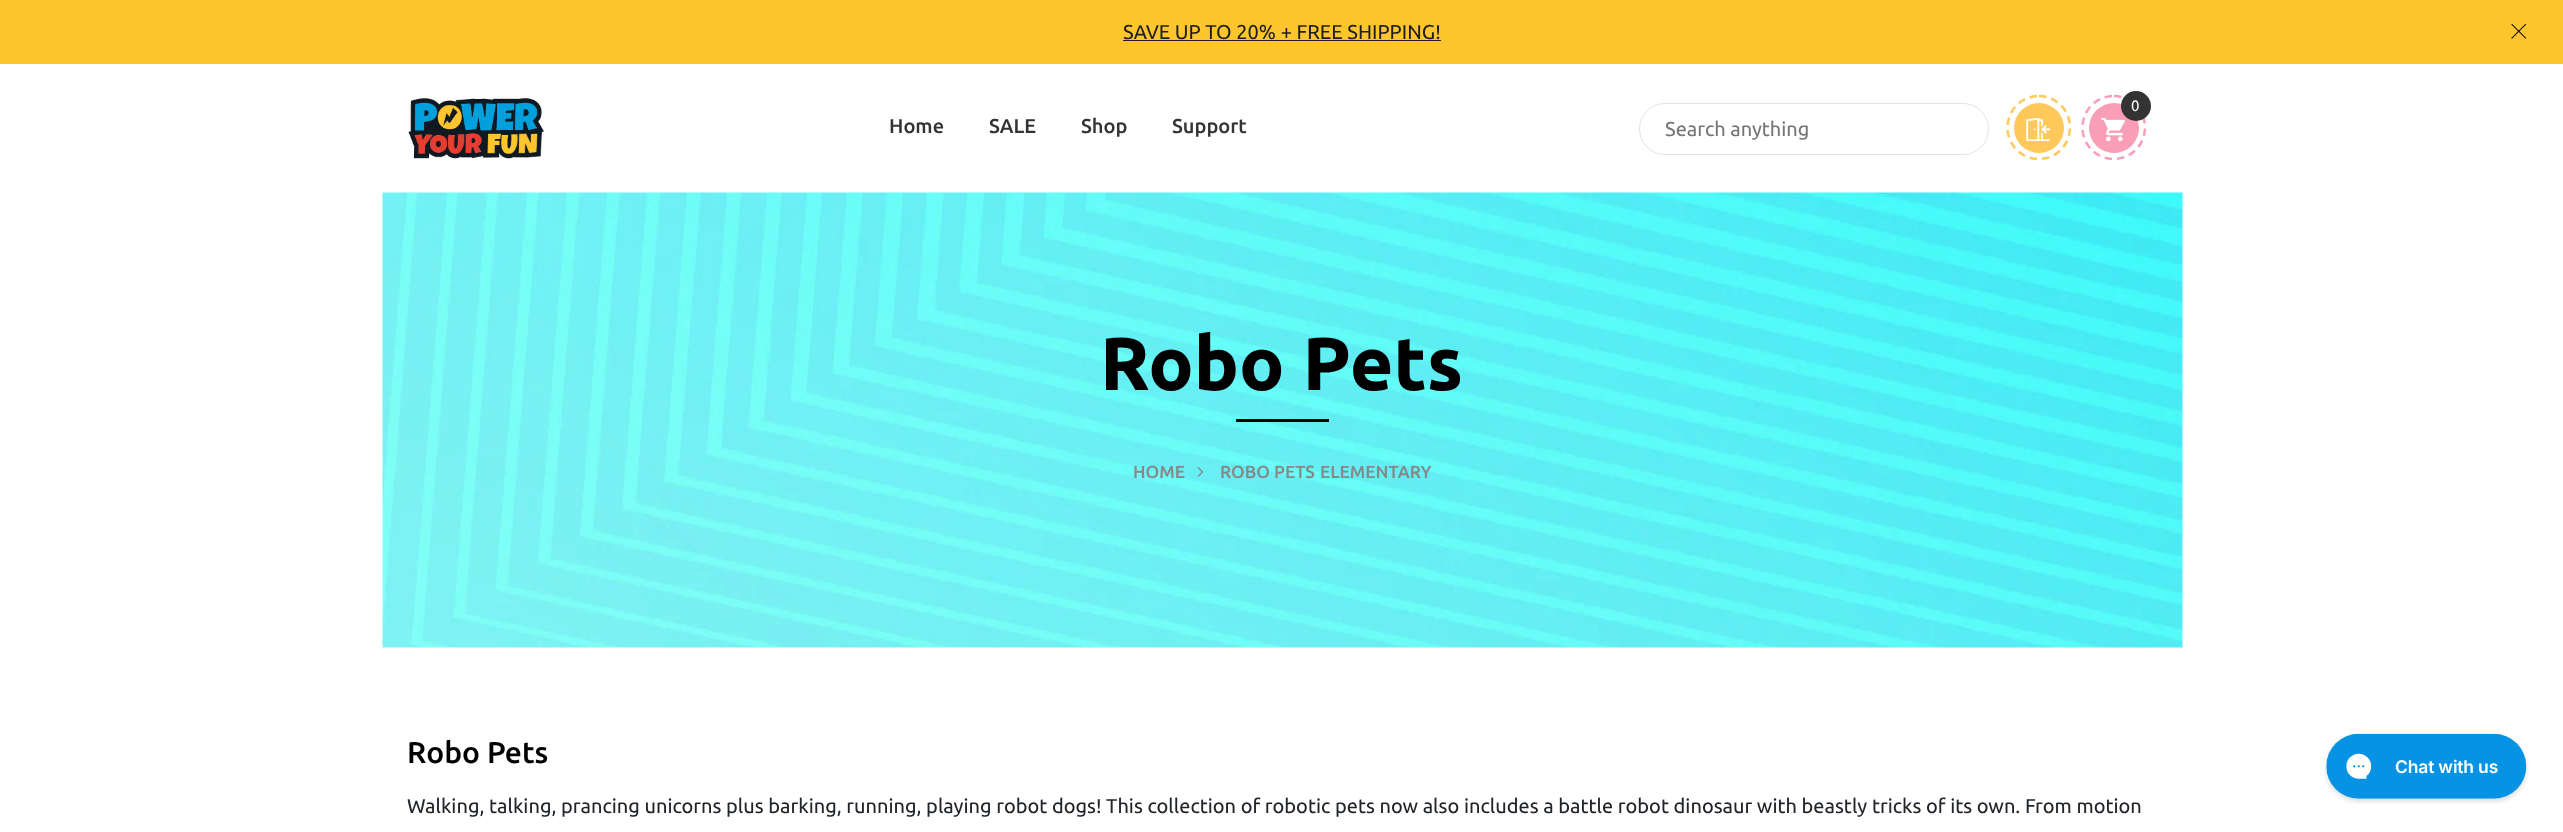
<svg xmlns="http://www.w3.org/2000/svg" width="2563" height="832">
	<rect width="100%" height="100%" fill="#FFFFFF" />
	<rect x="0" y="0" width="2563" height="64" fill="#FEC52D" />
	<text x="1123" y="39" font-family="Ubuntu" font-size="20" fill="#1E1E1E">SAVE UP TO 20% + FREE SHIPPING!</text>
	<rect x="1123" y="40" width="318" height="1" fill="#1E1E1E" />
	<image x="2511" y="24" width="15" height="15" href="assets/img1.png" />
	<image x="408" y="98" width="136" height="61" href="assets/img2.png" />
	<g font-family="Ubuntu" font-size="20" font-weight="500" fill="#333333">
		<text x="889" y="133">Home</text>
		<text x="989" y="133">SALE</text>
		<text x="1081" y="133">Shop</text>
		<text x="1172" y="133">Support</text>
	</g>
	<circle cx="2039" cy="128" r="25" fill="#FFC85B" />
	<image x="2026" y="118" width="24" height="23" href="assets/img3.png" />
	<path d="M2039 96C2056 96 2070 110 2070 127.5C2070 145 2056 159 2039 159C2021.5 159 2007.5 145 2007.5 127.5C2007.5 110 2021.5 96 2039 96Z" fill="none" stroke="#FFC85B" stroke-width="2.5" stroke-dasharray="7.5 5" />
	<circle cx="2114" cy="128" r="25" fill="#FA9DB7" />
	<image x="2101" y="118" width="24" height="23" href="assets/img4.png" />
	<path d="M2114 96C2131 96 2145 110 2145 127.5C2145 145 2131 159 2114 159C2096.5 159 2082.5 145 2082.5 127.5C2082.5 110 2096.5 96 2114 96Z" fill="none" stroke="#FA9DB7" stroke-width="2.5" stroke-dasharray="7.5 5" />
	<circle cx="2136" cy="106" r="15" fill="#333333" />
	<text x="2131" y="111" font-family="Ubuntu" font-size="15" fill="#FFFFFF">0</text>
	<rect x="1639.5" y="103.5" width="349" height="51" rx="25.5" fill="none" stroke="#E4E4E4" />
	<text x="1665" y="136" font-family="Ubuntu" font-size="20" fill="#757575">Search anything</text>
	<image x="382" y="192" width="1801" height="456" href="assets/img5.png" />
	<text x="1100" y="390" font-family="Ubuntu" font-size="75" font-weight="700" fill="#000000">Robo Pets</text>
	<rect x="1236" y="419" width="93" height="3" fill="#010101" />
	<text x="1133" y="478" font-family="Ubuntu" font-size="17.5" font-weight="500" fill="#878787">HOME</text>
	<image x="1197" y="467" width="7" height="10" href="assets/img6.png" />
	<g font-family="Ubuntu" font-size="17.5" font-weight="500" fill="#878787">
		<text x="1220" y="478">ROBO PETS</text>
		<text x="1320" y="478">ELEMENTARY</text>
	</g>
	<text x="407" y="763" font-family="Ubuntu" font-size="30" font-weight="500" fill="#000000">Robo Pets</text>
	<text x="407" y="813" font-family="Ubuntu" font-size="20" fill="#212529">Walking, talking, prancing unicorns plus barking, running, playing robot dogs! This collection of robotic pets now also includes a battle robot dinosaur with beastly tricks of its own. From motion</text>
	<image x="2324" y="733" width="205" height="71" href="assets/img7.png" />
</svg>
